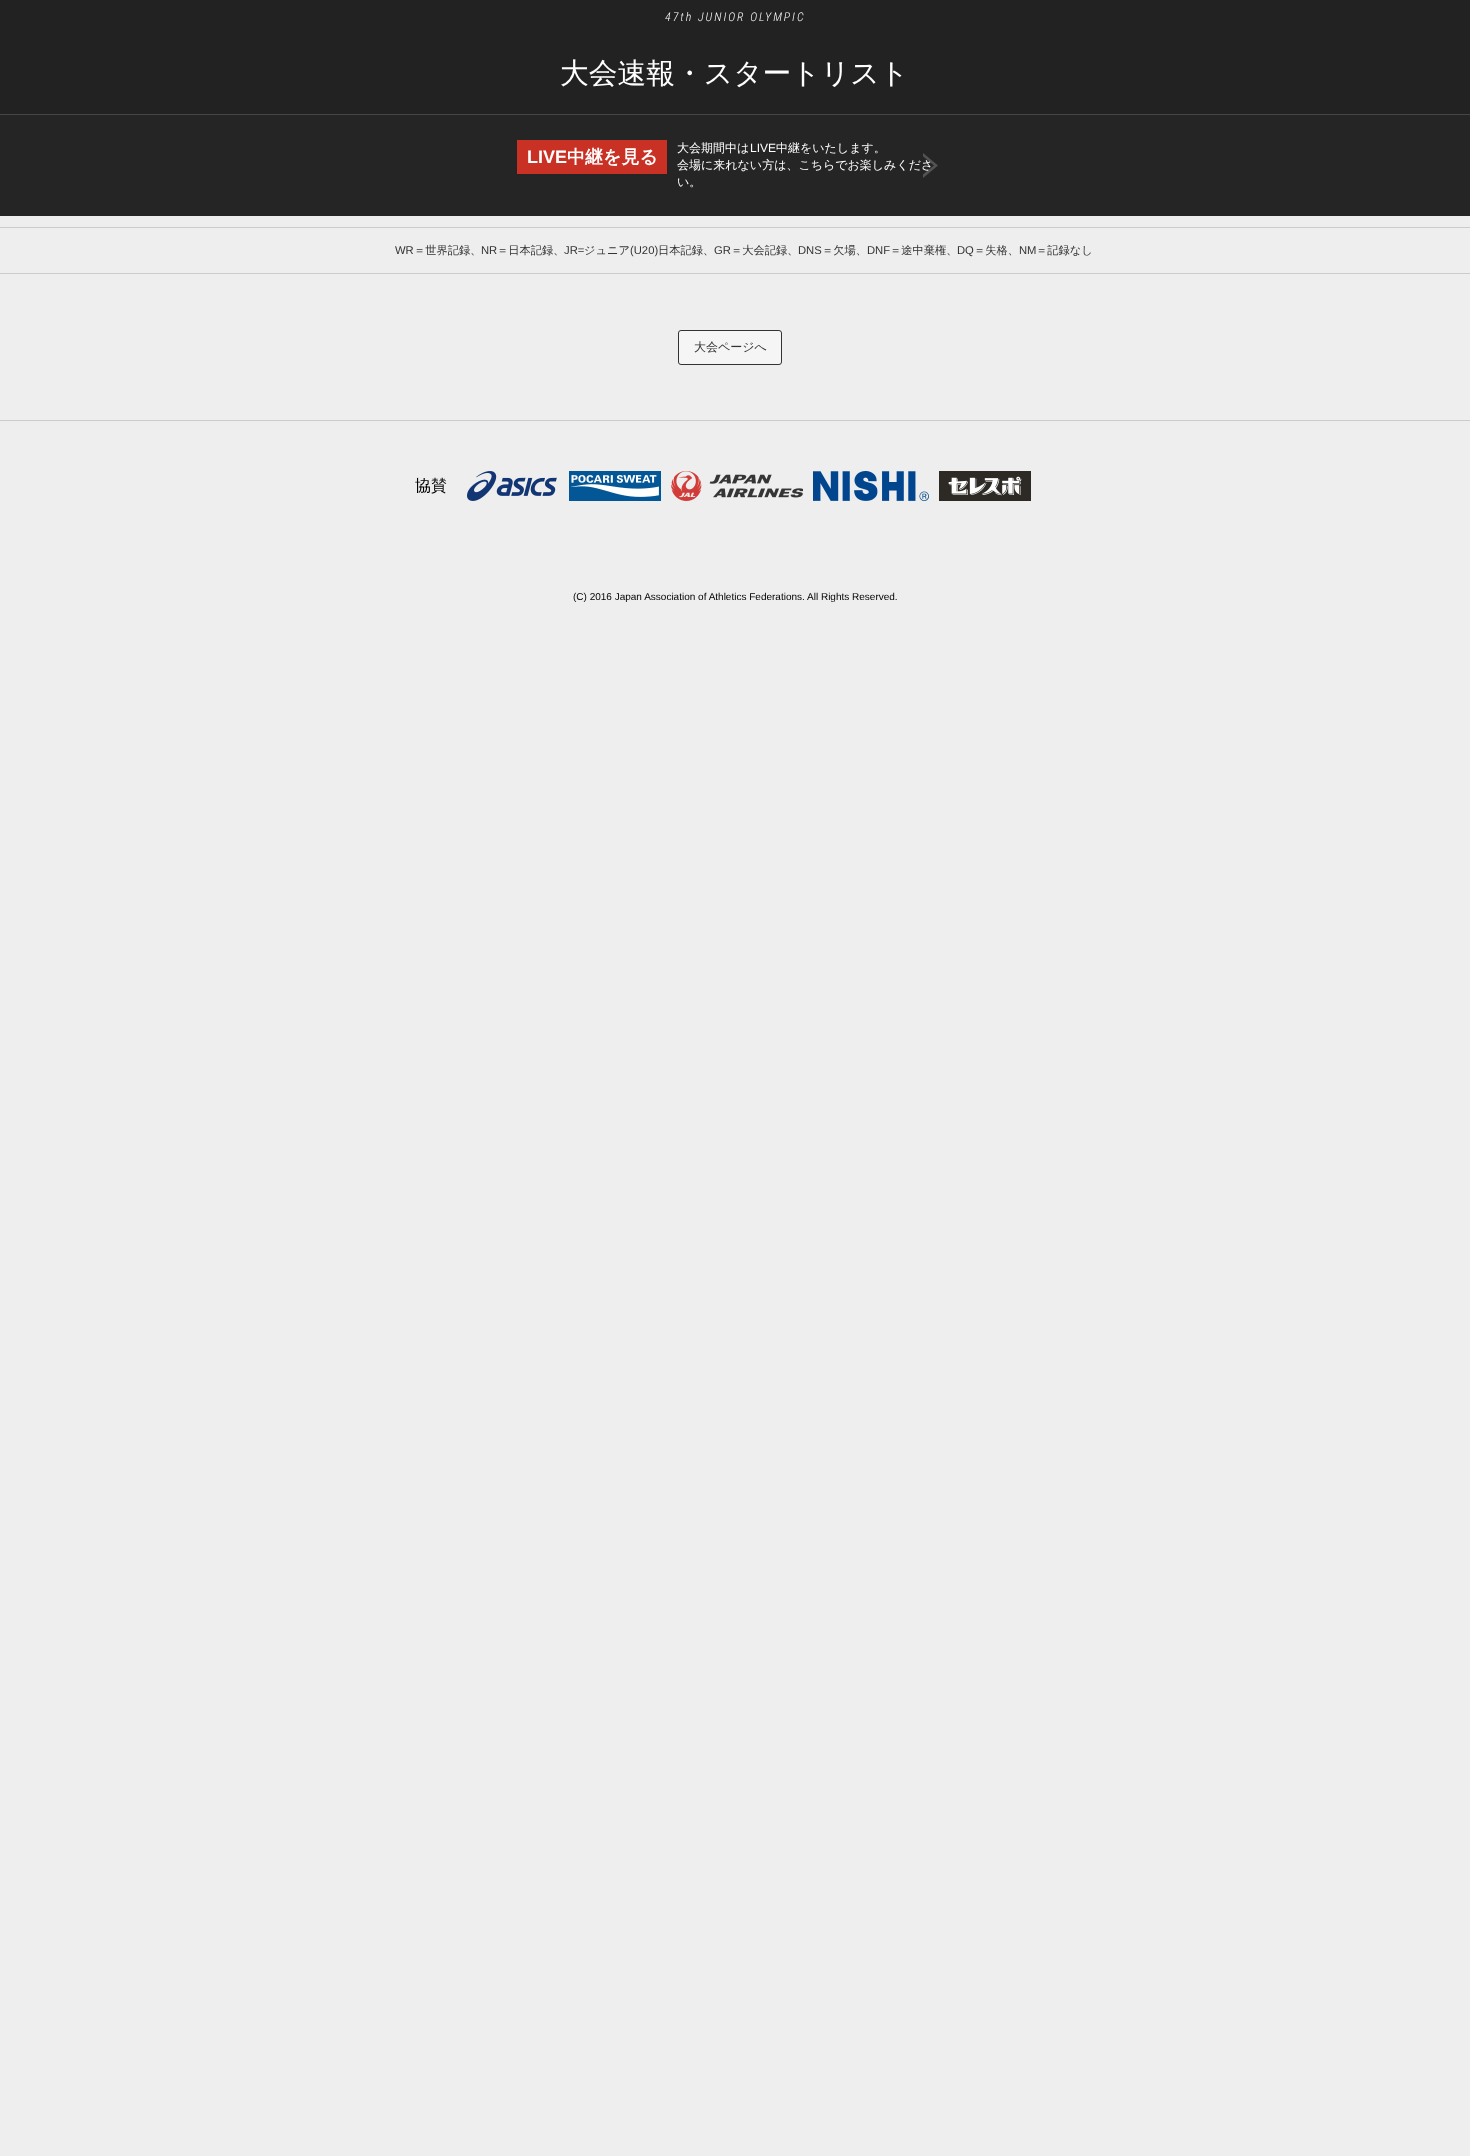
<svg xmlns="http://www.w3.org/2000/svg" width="1470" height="2156">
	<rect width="100%" height="100%" fill="#EEEEEE" />
	<rect x="0" y="0" width="1470" height="114" fill="#222222" />
	<text x="665" y="21" font-family="Roboto Condensed" font-size="12" font-weight="300" font-style="italic" letter-spacing="2" fill="#FFFFFF">47th JUNIOR OLYMPIC</text>
	<text x="560" y="83" font-family="WenQuanYi Zen Hei" font-size="28.75" font-weight="500" fill="#FFFFFF">大会速報・スタートリスト</text>
	<rect x="0" y="115" width="1470" height="101" fill="#252525" />
	<rect x="0" y="114" width="1470" height="1" fill="#464646" />
	<image x="923" y="153" width="15" height="25" href="assets/img1.png" />
	<rect x="517" y="140" width="150" height="34" fill="#C93124" />
	<text x="527" y="163" font-family="Liberation Sans" font-size="18" font-weight="700" fill="#FFFFFF">LIVE</text>
	<text x="567" y="163" font-family="WenQuanYi Zen Hei" font-size="18" font-weight="700" fill="#FFFFFF">中継を見る</text>
	<text x="677" y="152" font-family="WenQuanYi Zen Hei" font-size="12" font-weight="500" fill="#FFFFFF">大会期間中は</text>
	<text x="750" y="152" font-family="Liberation Sans" font-size="12" fill="#FFFFFF">LIVE</text>
	<g font-family="WenQuanYi Zen Hei" font-size="12" font-weight="500" fill="#FFFFFF">
		<text x="776" y="152">中継をいたします。</text>
		<text x="677" y="169">会場に来れない方は、こちらでお楽しみくださ</text>
		<text x="677" y="186">い。</text>
	</g>
	<rect x="0" y="227" width="1470" height="1" fill="#CCCCCC" />
	<rect x="0" y="273" width="1470" height="1" fill="#CCCCCC" />
	<text x="395" y="254" font-family="Liberation Sans" font-size="11.25" fill="#333333">WR</text>
	<text x="414" y="254" font-family="WenQuanYi Zen Hei" font-size="11.25" font-weight="500" fill="#333333">＝世界記録、</text>
	<text x="481" y="254" font-family="Liberation Sans" font-size="11.25" fill="#333333">NR</text>
	<text x="497" y="254" font-family="WenQuanYi Zen Hei" font-size="11.25" font-weight="500" fill="#333333">＝日本記録、</text>
	<text x="564" y="254" font-family="Liberation Sans" font-size="11.25" fill="#333333">JR=</text>
	<text x="584" y="254" font-family="WenQuanYi Zen Hei" font-size="11.25" font-weight="500" fill="#333333">ジュニア</text>
	<text x="630" y="254" font-family="Liberation Sans" font-size="11.25" fill="#333333">(U20)</text>
	<text x="658" y="254" font-family="WenQuanYi Zen Hei" font-size="11.25" font-weight="500" fill="#333333">日本記録、</text>
	<text x="714" y="254" font-family="Liberation Sans" font-size="11.25" fill="#333333">GR</text>
	<text x="731" y="254" font-family="WenQuanYi Zen Hei" font-size="11.25" font-weight="500" fill="#333333">＝大会記録、</text>
	<text x="798" y="254" font-family="Liberation Sans" font-size="11.25" fill="#333333">DNS</text>
	<text x="822" y="254" font-family="WenQuanYi Zen Hei" font-size="11.25" font-weight="500" fill="#333333">＝欠場、</text>
	<text x="867" y="254" font-family="Liberation Sans" font-size="11.25" fill="#333333">DNF</text>
	<text x="890" y="254" font-family="WenQuanYi Zen Hei" font-size="11.25" font-weight="500" fill="#333333">＝途中棄権、</text>
	<text x="957" y="254" font-family="Liberation Sans" font-size="11.25" fill="#333333">DQ</text>
	<text x="974" y="254" font-family="WenQuanYi Zen Hei" font-size="11.25" font-weight="500" fill="#333333">＝失格、</text>
	<text x="1019" y="254" font-family="Liberation Sans" font-size="11.25" fill="#333333">NM</text>
	<text x="1036" y="254" font-family="WenQuanYi Zen Hei" font-size="11.25" font-weight="500" fill="#333333">＝記録なし</text>
	<rect x="678.5" y="330.5" width="103" height="34" rx="2.5" fill="#F5F5F5" stroke="#333333" />
	<text x="694" y="351" font-family="WenQuanYi Zen Hei" font-size="12" font-weight="500" fill="#333333">大会ページへ</text>
	<rect x="0" y="420" width="1470" height="1" fill="#CCCCCC" />
	<text x="415" y="491" font-family="WenQuanYi Zen Hei" font-size="16" font-weight="500" fill="#000000">協賛</text>
	<image x="467" y="471" width="90" height="30" href="assets/img2.png" />
	<image x="569" y="471" width="92" height="30" href="assets/img3.png" />
	<image x="671" y="471" width="132" height="30" href="assets/img4.png" />
	<image x="813" y="471" width="116" height="30" href="assets/img5.png" />
	<image x="939" y="471" width="92" height="30" href="assets/img6.png" />
	<text x="573" y="600" font-family="Liberation Sans" font-size="10" fill="#000000">(C) 2016 Japan Association of Athletics Federations. All Rights Reserved.</text>
</svg>
